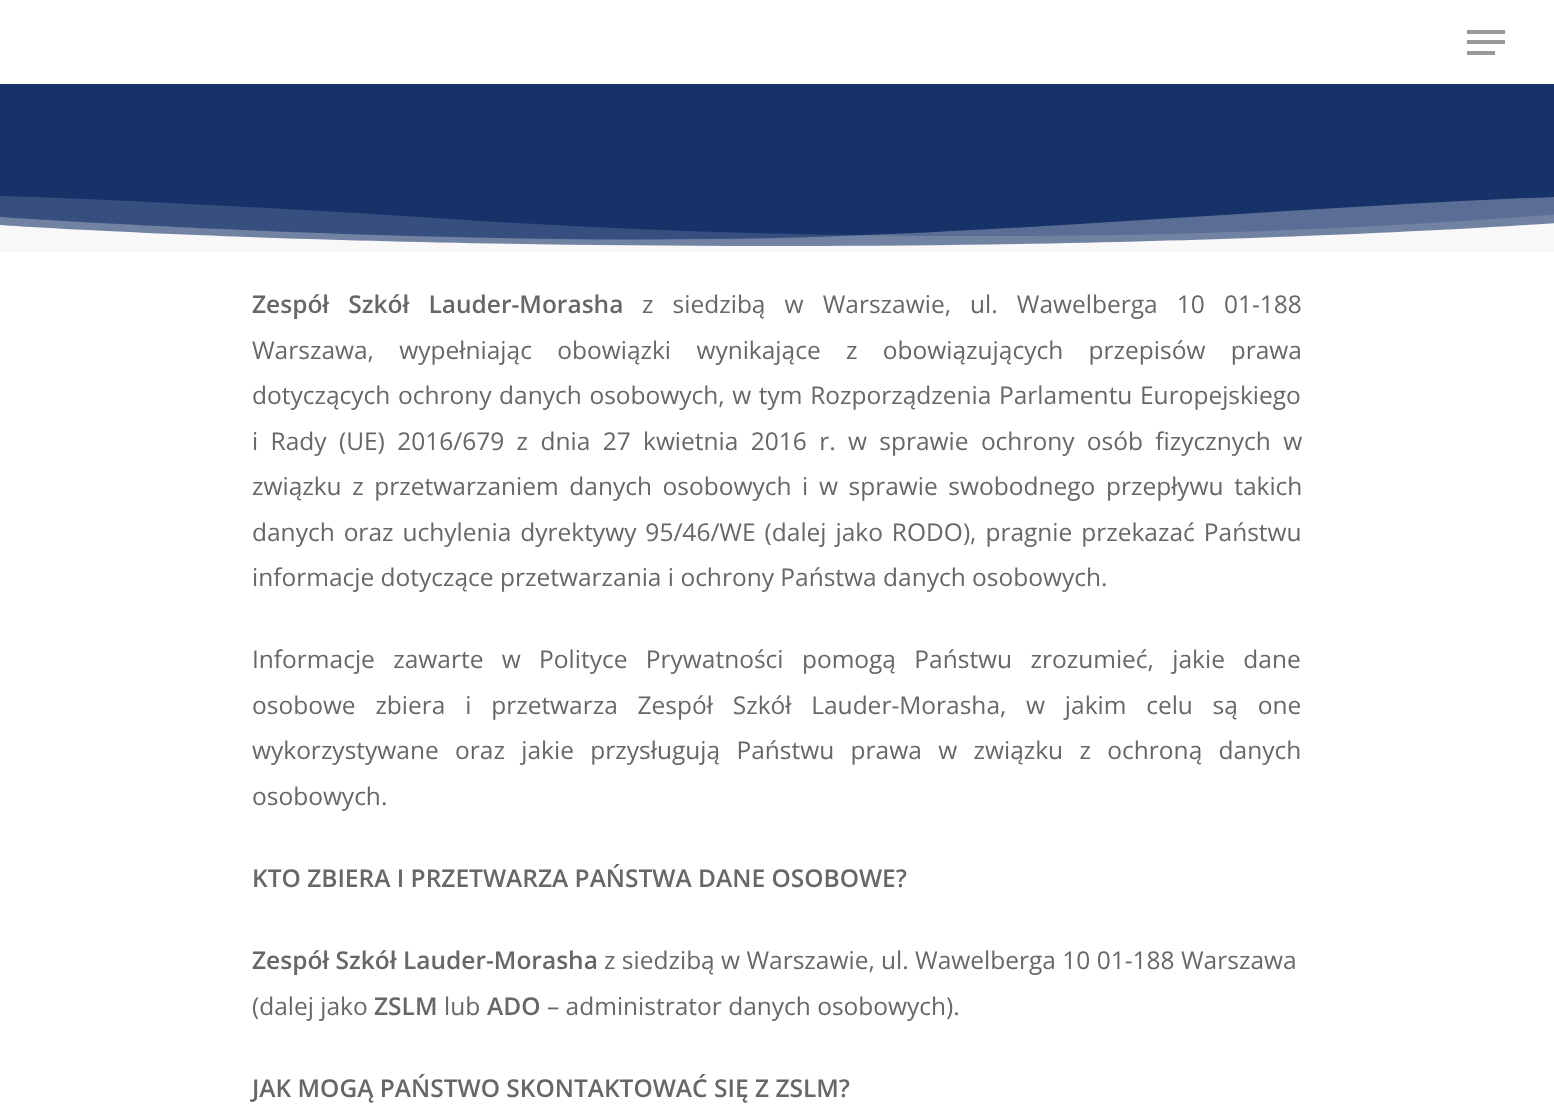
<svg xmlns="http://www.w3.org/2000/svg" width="1554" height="1114">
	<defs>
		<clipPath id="clip1"><rect x="0" y="187" width="1554" height="65" /></clipPath>
	</defs>
	<rect width="100%" height="100%" fill="#FFFFFF" />
	<rect x="1467" y="30" width="38" height="4" fill="#999999" />
	<rect x="1467" y="51" width="28" height="4" fill="#999999" />
	<rect x="1467" y="40" width="38" height="4" fill="#999999" />
	<rect x="0" y="84" width="1554" height="162" fill="#163269" />
	<g clip-path="url(#clip1)">
		<path d="M0 196C0 196 138 199 466 220C870 246 1265 238 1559 214L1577 232L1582 256H0Z" fill="#F8F8F8" fill-opacity="0.15" />
		<path d="M0 217C0 217 421 246 777 238C1021 232 1290 207 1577 196V253H0Z" fill="#F8F8F8" fill-opacity="0.3" />
		<path d="M0 225C0 225 293 246 789 246C1240 246 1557 223 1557 223V253H0Z" fill="#F8F8F8" />
	</g>
	<text x="252" y="313" word-spacing="12.75" font-family="Open Sans" font-size="24.5" font-weight="600" fill="#676767">Zespół Szkół Lauder-Morasha</text>
	<g font-family="Open Sans" font-size="24.5" fill="#676767">
		<text x="642" y="313" word-spacing="12.75">z siedzibą w Warszawie, ul. Wawelberga 10 01-188</text>
		<text x="252" y="359" word-spacing="19">Warszawa, wypełniając obowiązki wynikające z obowiązujących przepisów prawa</text>
		<text x="252" y="404" word-spacing="1.25">dotyczących ochrony danych osobowych, w tym Rozporządzenia Parlamentu Europejskiego</text>
		<text x="252" y="450" word-spacing="6">i Rady (UE) 2016/679 z dnia 27 kwietnia 2016 r. w sprawie ochrony osób fizycznych w</text>
		<text x="252" y="495" word-spacing="4.25">związku z przetwarzaniem danych osobowych i w sprawie swobodnego przepływu takich</text>
		<text x="252" y="541" word-spacing="2.6">danych oraz uchylenia dyrektywy 95/46/WE (dalej jako RODO), pragnie przekazać Państwu</text>
		<text x="252" y="586">informacje dotyczące przetwarzania i ochrony Państwa danych osobowych.</text>
		<text x="252" y="668" word-spacing="12">Informacje zawarte w Polityce Prywatności pomogą Państwu zrozumieć, jakie dane</text>
		<text x="252" y="714" word-spacing="13.4">osobowe zbiera i przetwarza Zespół Szkół Lauder-Morasha, w jakim celu są one</text>
		<text x="252" y="759" word-spacing="10">wykorzystywane oraz jakie przysługują Państwu prawa w związku z ochroną danych</text>
		<text x="252" y="805">osobowych.</text>
	</g>
	<g font-family="Open Sans" font-size="24.5" font-weight="600" fill="#676767">
		<text x="252" y="887">KTO ZBIERA I PRZETWARZA PAŃSTWA DANE OSOBOWE?</text>
		<text x="252" y="969">Zespół Szkół Lauder-Morasha</text>
	</g>
	<g font-family="Open Sans" font-size="24.5" fill="#676767">
		<text x="604" y="969">z siedzibą w Warszawie, ul. Wawelberga 10 01-188 Warszawa</text>
		<text x="252" y="1015">(dalej jako</text>
	</g>
	<text x="374" y="1015" font-family="Open Sans" font-size="24.5" font-weight="600" fill="#676767">ZSLM</text>
	<text x="444" y="1015" font-family="Open Sans" font-size="24.5" fill="#676767">lub</text>
	<text x="487" y="1015" font-family="Open Sans" font-size="24.5" font-weight="600" fill="#676767">ADO</text>
	<text x="547" y="1015" font-family="Open Sans" font-size="24.5" fill="#676767">– administrator danych osobowych).</text>
	<text x="252" y="1097" font-family="Open Sans" font-size="24.5" font-weight="600" fill="#676767">JAK MOGĄ PAŃSTWO SKONTAKTOWAĆ SIĘ Z ZSLM?</text>
</svg>
